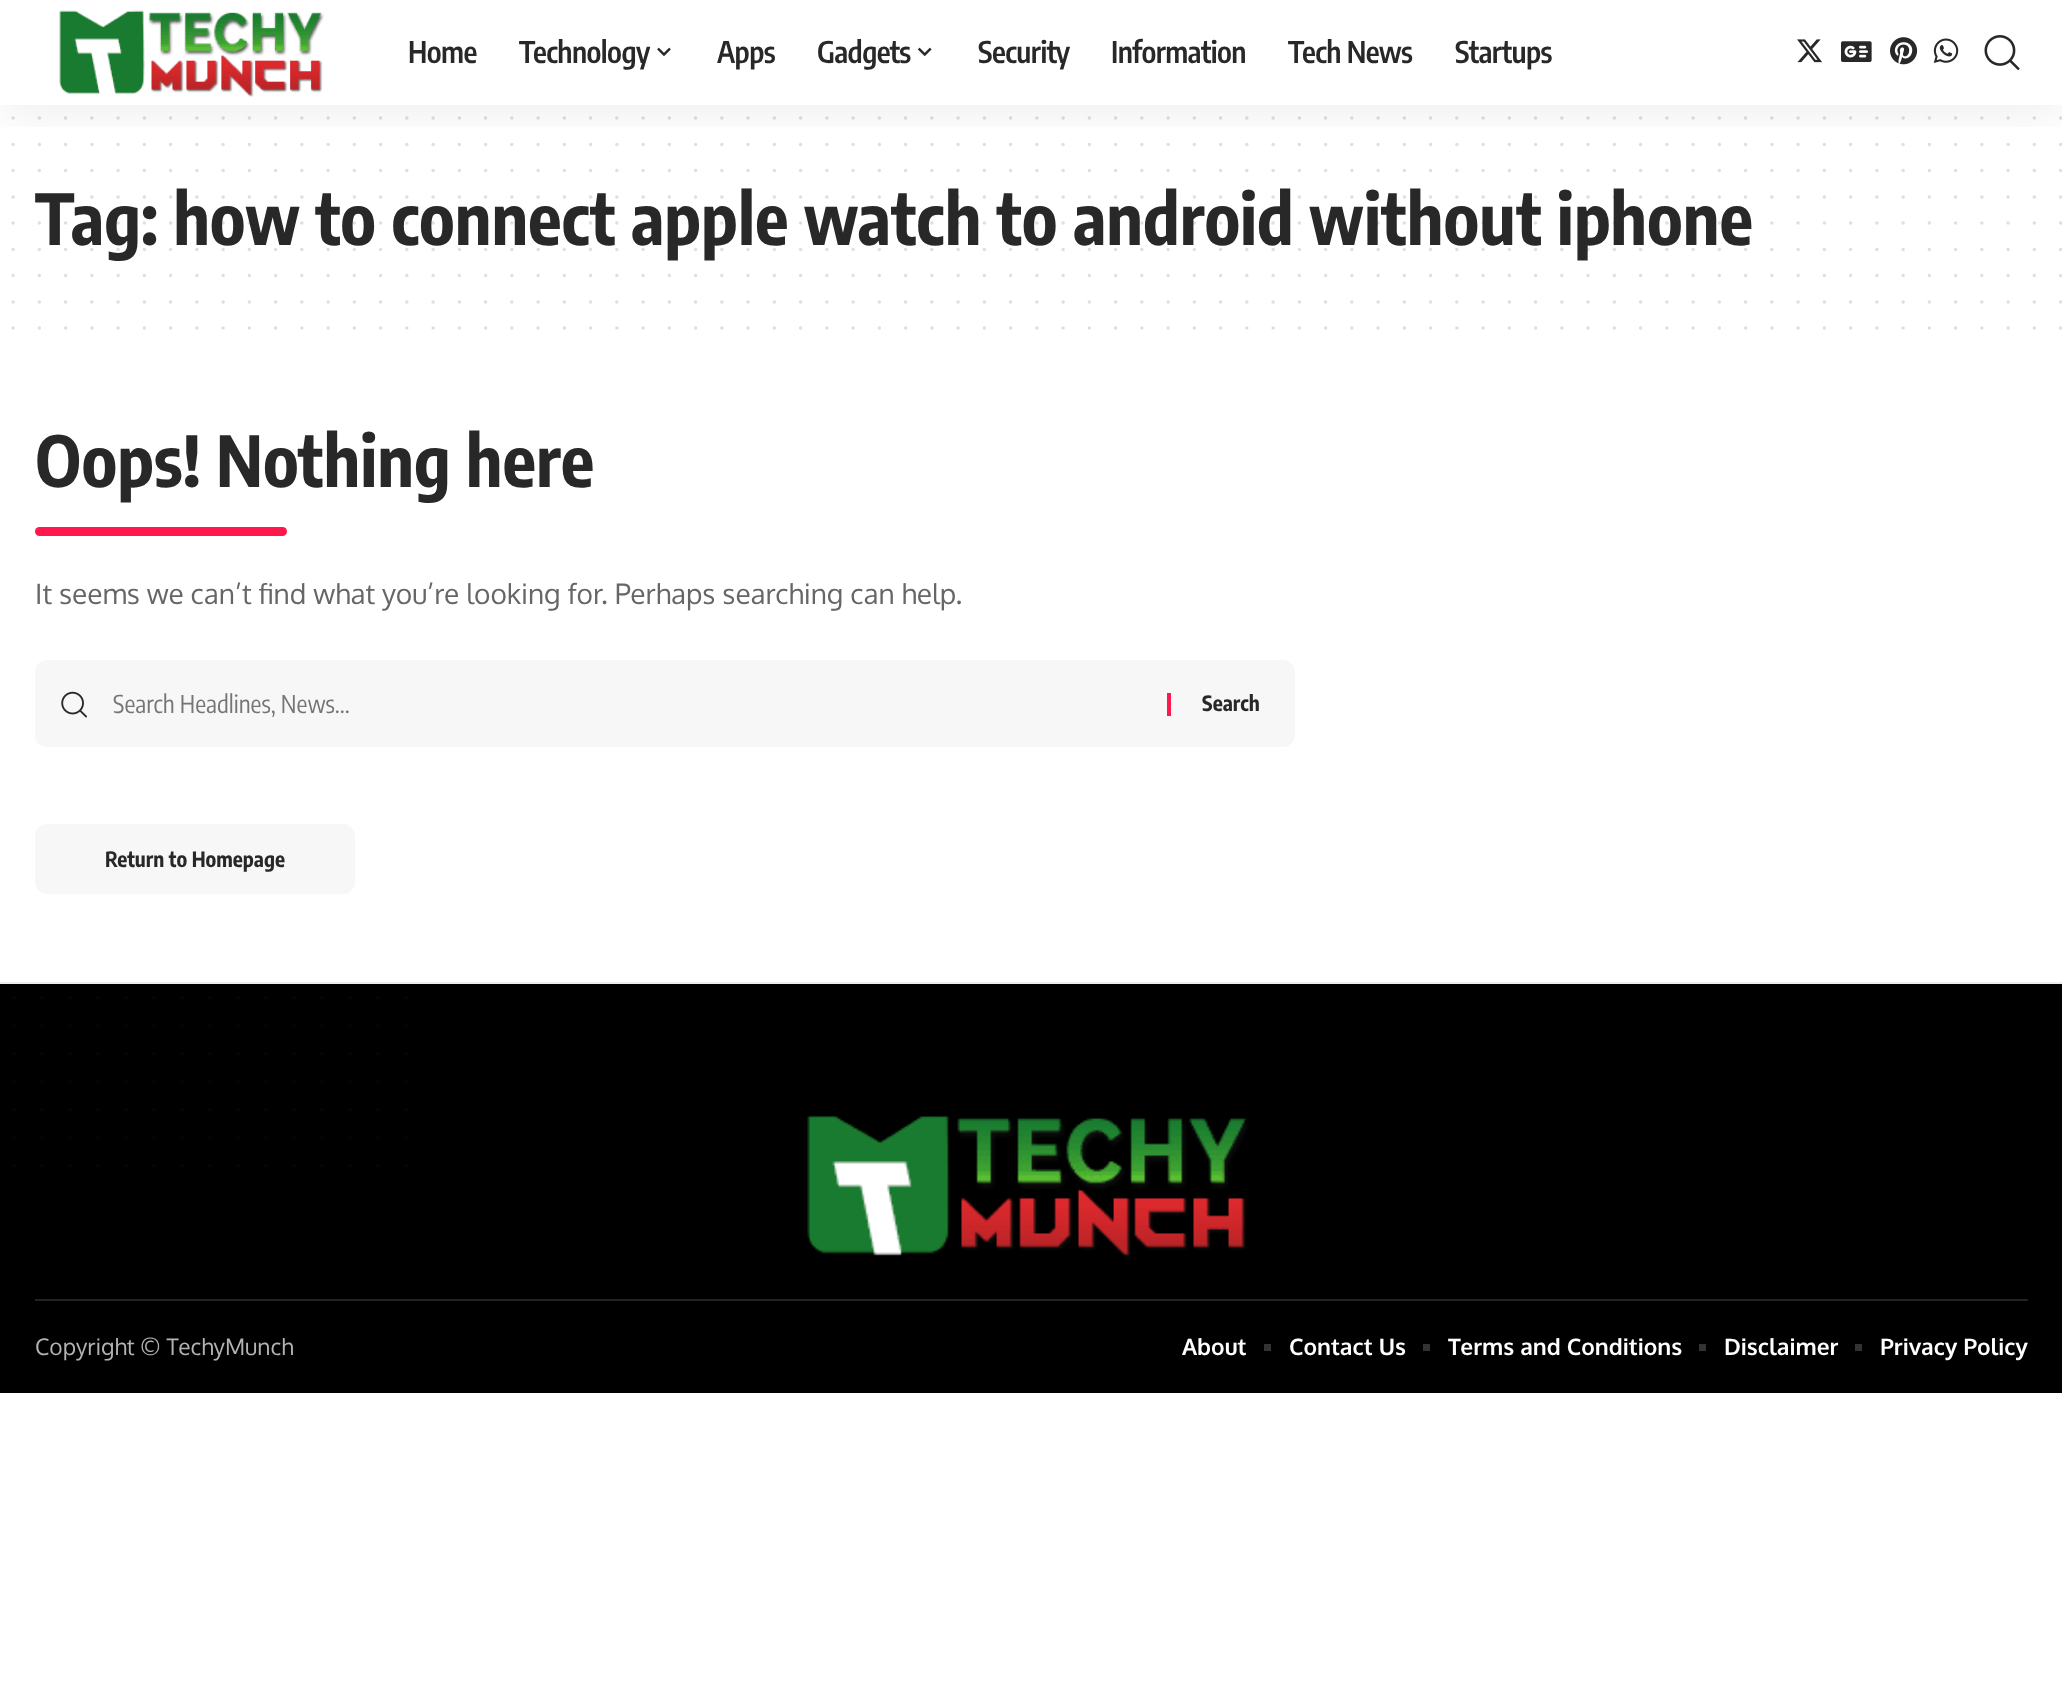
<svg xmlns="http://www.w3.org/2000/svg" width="2062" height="1703">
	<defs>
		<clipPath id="clip1"><rect x="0" y="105" width="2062" height="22" /></clipPath>
	</defs>
	<rect width="100%" height="100%" fill="#FFFFFF" />
	<path d="M13.1 118.1H2061" fill="none" stroke="#DFDFDF" stroke-width="3.5" stroke-linecap="round" stroke-dasharray="0 26.25" />
	<path d="M13.1 144.4H2061" fill="none" stroke="#DFDFDF" stroke-width="3.5" stroke-linecap="round" stroke-dasharray="0 26.25" />
	<path d="M13.1 170.6H2061" fill="none" stroke="#DFDFDF" stroke-width="3.5" stroke-linecap="round" stroke-dasharray="0 26.25" />
	<g clip-path="url(#clip1)">
		<rect x="0" y="7" width="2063" height="105" fill="#000000" fill-opacity="0.07" filter="blur(26px)" />
	</g>
	<image x="59" y="10" width="265" height="87" href="assets/img1.png" />
	<g font-family="Encode Sans Condensed" font-size="29.75" font-weight="600" letter-spacing="-0.6" fill="#282828">
		<text x="408" y="63">Home</text>
		<text x="519" y="63">Technology</text>
	</g>
	<image x="657" y="47" width="14" height="10" href="assets/img2.png" />
	<g font-family="Encode Sans Condensed" font-size="29.75" font-weight="600" letter-spacing="-0.6" fill="#282828">
		<text x="717" y="63">Apps</text>
		<text x="817" y="63">Gadgets</text>
	</g>
	<image x="917" y="47" width="15" height="10" href="assets/img3.png" />
	<g font-family="Encode Sans Condensed" font-size="29.75" font-weight="600" letter-spacing="-0.6" fill="#282828">
		<text x="978" y="63">Security</text>
		<text x="1111" y="63">Information</text>
		<text x="1288" y="63">Tech News</text>
		<text x="1455" y="63">Startups</text>
	</g>
	<image x="1797" y="39" width="25" height="24" href="assets/img4.png" />
	<image x="1841" y="41" width="31" height="21" href="assets/img5.png" />
	<image x="1890" y="37" width="28" height="28" href="assets/img6.png" />
	<image x="1933" y="38" width="26" height="25" href="assets/img7.png" />
	<image x="1984" y="35" width="36" height="35" href="assets/img8.png" />
	<text x="35" y="245" font-family="Encode Sans Condensed" font-size="70" font-weight="700" fill="#282828">Tag: how to connect apple watch to android without iphone</text>
	<path d="M13.1 196.9H2061" fill="none" stroke="#282828" stroke-opacity="0.15" stroke-width="3.5" stroke-linecap="round" stroke-dasharray="0 26.25" />
	<path d="M13.1 223.1H2061" fill="none" stroke="#282828" stroke-opacity="0.15" stroke-width="3.5" stroke-linecap="round" stroke-dasharray="0 26.25" />
	<path d="M13.1 249.4H2061" fill="none" stroke="#282828" stroke-opacity="0.15" stroke-width="3.5" stroke-linecap="round" stroke-dasharray="0 26.25" />
	<path d="M13.1 275.6H2061" fill="none" stroke="#DFDFDF" stroke-width="3.5" stroke-linecap="round" stroke-dasharray="0 26.25" />
	<path d="M13.1 301.9H2061" fill="none" stroke="#DFDFDF" stroke-width="3.5" stroke-linecap="round" stroke-dasharray="0 26.25" />
	<path d="M13.1 328.1H2061" fill="none" stroke="#DFDFDF" stroke-width="3.5" stroke-linecap="round" stroke-dasharray="0 26.25" />
	<text x="35" y="487" font-family="Encode Sans Condensed" font-size="70" font-weight="700" fill="#282828">Oops! Nothing here</text>
	<rect x="35" y="527" width="252" height="9" rx="4.5" fill="#FF184E" />
	<text x="35" y="604" font-family="Oxygen" font-size="28" fill="#666666">It seems we can’t find what you’re looking for. Perhaps searching can help.</text>
	<rect x="35" y="660" width="1260" height="87" rx="12" fill="#F7F7F7" />
	<image x="61" y="691" width="26" height="27" href="assets/img9.png" />
	<text x="113" y="713" font-family="Encode Sans Condensed" font-size="24.5" fill="#757575">Search Headlines, News...</text>
	<rect x="1167" y="693" width="4" height="23" fill="#FF184E" />
	<text x="1202" y="711" font-family="Encode Sans Condensed" font-size="21" font-weight="700" fill="#282828">Search</text>
	<rect x="35" y="824" width="320" height="70" rx="12" fill="#F7F7F7" />
	<text x="105" y="867" font-family="Encode Sans Condensed" font-size="21" font-weight="700" fill="#282828">Return to Homepage</text>
	<rect x="0" y="982" width="2062" height="2" fill="#EDEDED" />
	<rect x="0" y="984" width="2062" height="409" fill="#000000" />
	<path d="M14 997.5H406.3" fill="none" stroke="#080808" stroke-width="2.6" stroke-linecap="round" stroke-dasharray="0 28" />
	<path d="M14 1025.5H406.3" fill="none" stroke="#080808" stroke-width="2.6" stroke-linecap="round" stroke-dasharray="0 28" />
	<path d="M14 1053.5H406.3" fill="none" stroke="#080808" stroke-width="2.6" stroke-linecap="round" stroke-dasharray="0 28" />
	<path d="M14 1081.5H406.3" fill="none" stroke="#080808" stroke-width="2.6" stroke-linecap="round" stroke-dasharray="0 28" />
	<path d="M14 1109.5H406.3" fill="none" stroke="#080808" stroke-width="2.6" stroke-linecap="round" stroke-dasharray="0 28" />
	<path d="M14 1137.5H406.3" fill="none" stroke="#080808" stroke-width="2.6" stroke-linecap="round" stroke-dasharray="0 28" />
	<path d="M14 1165.5H406.3" fill="none" stroke="#080808" stroke-width="2.6" stroke-linecap="round" stroke-dasharray="0 28" />
	<image x="807" y="1115" width="442" height="143" href="assets/img10.png" />
	<rect x="35" y="1299" width="1993" height="2" fill="#222222" />
	<text x="35" y="1355" font-family="Oxygen" font-size="22.75" fill="#B3B3B3">Copyright © TechyMunch</text>
	<text x="1182" y="1355" font-family="Oxygen" font-size="22.75" font-weight="700" fill="#FFFFFF">About</text>
	<rect x="1264" y="1344" width="7" height="7" fill="#333333" />
	<text x="1289" y="1355" font-family="Oxygen" font-size="22.75" font-weight="700" fill="#FFFFFF">Contact Us</text>
	<rect x="1423" y="1344" width="7" height="7" fill="#333333" />
	<text x="1448" y="1355" font-family="Oxygen" font-size="22.75" font-weight="700" fill="#FFFFFF">Terms and Conditions</text>
	<rect x="1699" y="1344" width="7" height="7" fill="#333333" />
	<text x="1724" y="1355" font-family="Oxygen" font-size="22.75" font-weight="700" fill="#FFFFFF">Disclaimer</text>
	<rect x="1855" y="1344" width="7" height="7" fill="#333333" />
	<text x="1880" y="1355" font-family="Oxygen" font-size="22.75" font-weight="700" fill="#FFFFFF">Privacy Policy</text>
</svg>
